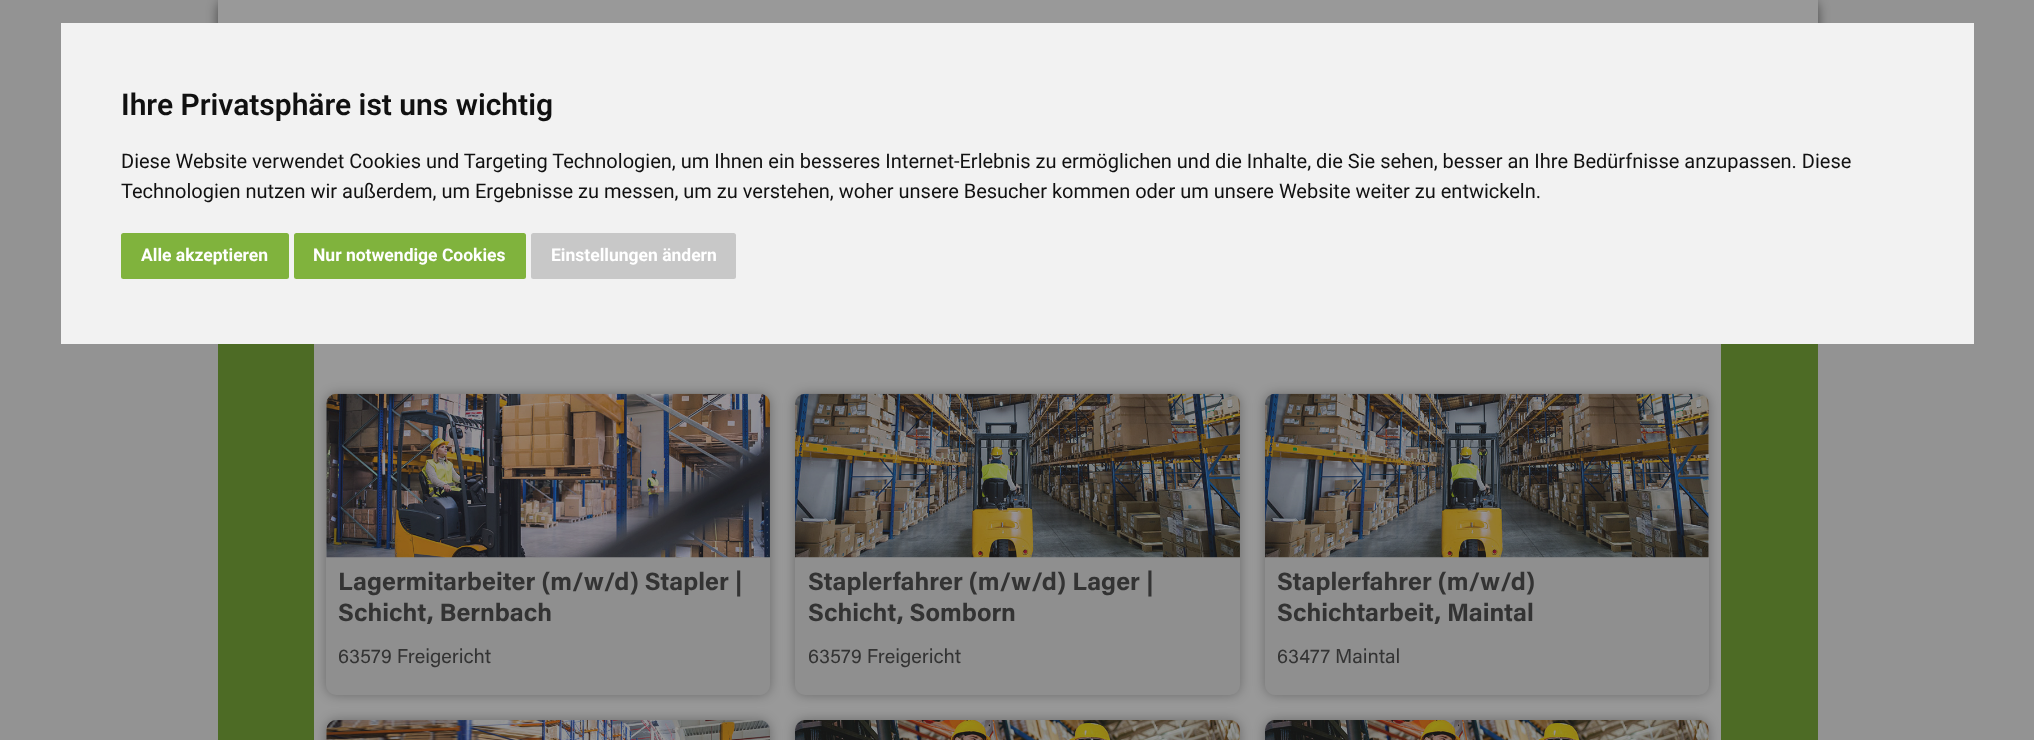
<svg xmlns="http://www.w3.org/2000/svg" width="2034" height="740">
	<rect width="100%" height="100%" fill="#939393" />
	<rect x="218" y="0" width="1600" height="156" rx="10" fill="#000000" fill-opacity="0.5" filter="blur(6px)" />
	<rect x="61" y="23" width="1913" height="321" fill="#F2F2F2" />
	<text x="121" y="115" font-family="Roboto" font-size="30" font-weight="600" fill="#111111">Ihre Privatsphäre ist uns wichtig</text>
	<g font-family="Roboto" font-size="20" fill="#111111">
		<text x="121" y="168">Diese Website verwendet Cookies und Targeting Technologien, um Ihnen ein besseres Internet-Erlebnis zu ermöglichen und die Inhalte, die Sie sehen, besser an Ihre Bedürfnisse anzupassen. Diese</text>
		<text x="121" y="198">Technologien nutzen wir außerdem, um Ergebnisse zu messen, um zu verstehen, woher unsere Besucher kommen oder um unsere Website weiter zu entwickeln.</text>
	</g>
	<rect x="121" y="233" width="168" height="46" rx="2.5" fill="#80B33D" />
	<text x="141" y="261" font-family="Roboto" font-size="17.5" font-weight="700" fill="#FFFFFF">Alle akzeptieren</text>
	<rect x="294" y="233" width="232" height="46" rx="2.5" fill="#80B33D" />
	<text x="313" y="261" font-family="Roboto" font-size="17.5" font-weight="700" fill="#FFFFFF">Nur notwendige Cookies</text>
	<rect x="531" y="233" width="205" height="46" rx="2.5" fill="#C8C8C8" />
	<text x="551" y="261" font-family="Roboto" font-size="17.5" font-weight="700" fill="#FFFFFF">Einstellungen ändern</text>
	<rect x="218" y="344" width="1600" height="396" fill="#4D6B25" />
	<rect x="218" y="0" width="1600" height="23" fill="#999999" />
	<rect x="314" y="344" width="1407" height="396" fill="#999999" />
	<rect x="326" y="394" width="444" height="301" rx="10" fill="#000000" fill-opacity="0.3" filter="blur(6px)" />
	<rect x="326" y="394" width="444" height="301" rx="10" fill="#8F8F8F" />
	<image x="326" y="393" width="444" height="165" href="assets/img1.png" />
	<g font-family="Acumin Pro" font-size="25" font-weight="700" fill="#333333">
		<text x="338" y="590">Lagermitarbeiter (m/w/d) Stapler |</text>
		<text x="338" y="621">Schicht, Bernbach</text>
	</g>
	<text x="338" y="663" font-family="Acumin Pro" font-size="20" fill="#333333">63579 Freigericht</text>
	<rect x="795" y="394" width="445" height="301" rx="10" fill="#000000" fill-opacity="0.3" filter="blur(6px)" />
	<rect x="795" y="394" width="445" height="301" rx="10" fill="#8F8F8F" />
	<image x="795" y="393" width="445" height="165" href="assets/img2.png" />
	<g font-family="Acumin Pro" font-size="25" font-weight="700" fill="#333333">
		<text x="808" y="590">Staplerfahrer (m/w/d) Lager |</text>
		<text x="808" y="621">Schicht, Somborn</text>
	</g>
	<text x="808" y="663" font-family="Acumin Pro" font-size="20" fill="#333333">63579 Freigericht</text>
	<rect x="1265" y="394" width="444" height="301" rx="10" fill="#000000" fill-opacity="0.3" filter="blur(6px)" />
	<rect x="1265" y="394" width="444" height="301" rx="10" fill="#8F8F8F" />
	<image x="1265" y="393" width="444" height="165" href="assets/img3.png" />
	<g font-family="Acumin Pro" font-size="25" font-weight="700" fill="#333333">
		<text x="1277" y="590">Staplerfahrer (m/w/d)</text>
		<text x="1277" y="621">Schichtarbeit, Maintal</text>
	</g>
	<text x="1277" y="663" font-family="Acumin Pro" font-size="20" fill="#333333">63477 Maintal</text>
	<rect x="326" y="720" width="444" height="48" rx="10" fill="#000000" fill-opacity="0.3" filter="blur(6px)" />
	<rect x="326" y="720" width="444" height="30" rx="10" fill="#8F8F8F" />
	<image x="326" y="720" width="444" height="20" href="assets/img4.png" />
	<rect x="795" y="720" width="445" height="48" rx="10" fill="#000000" fill-opacity="0.3" filter="blur(6px)" />
	<rect x="795" y="720" width="445" height="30" rx="10" fill="#8F8F8F" />
	<image x="795" y="720" width="445" height="20" href="assets/img5.png" />
	<rect x="1265" y="720" width="444" height="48" rx="10" fill="#000000" fill-opacity="0.3" filter="blur(6px)" />
	<rect x="1265" y="720" width="444" height="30" rx="10" fill="#8F8F8F" />
	<image x="1265" y="720" width="444" height="20" href="assets/img6.png" />
</svg>
